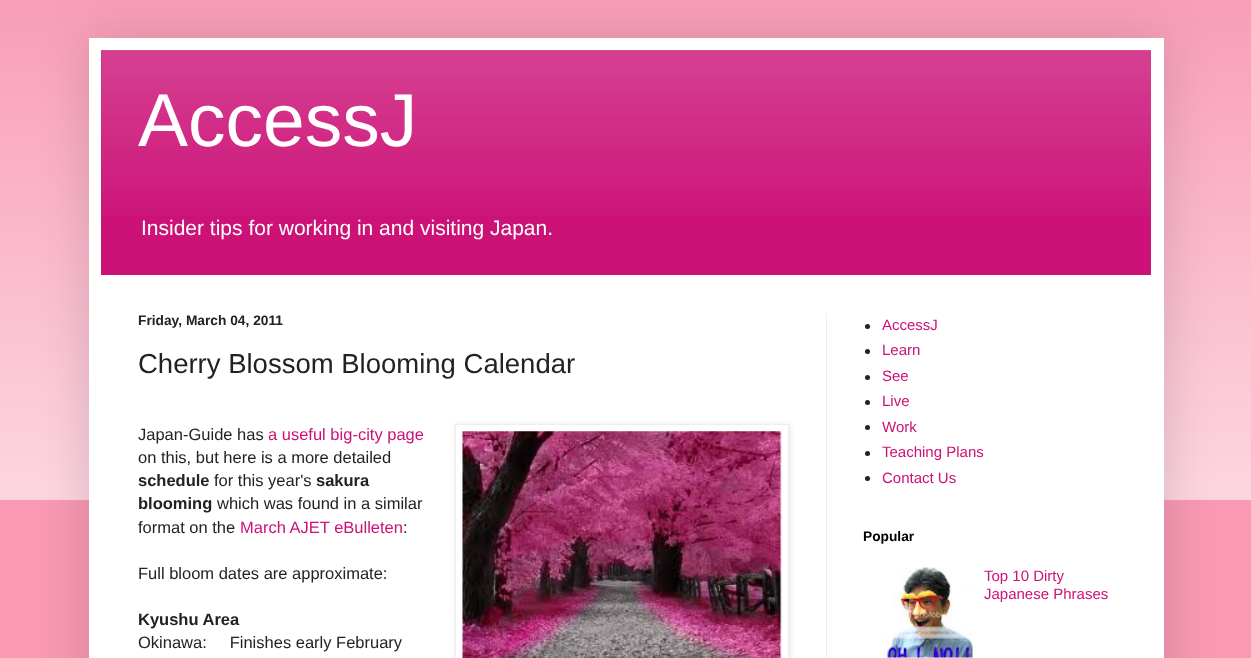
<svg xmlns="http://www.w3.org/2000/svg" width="1251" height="658">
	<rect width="100%" height="100%" fill="#F999B4" />
	<image x="0" y="0" width="1251" height="500" href="assets/img1.png" />
	<rect x="89" y="38" width="1075" height="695" fill="#000000" fill-opacity="0.15" filter="blur(25px)" />
	<rect x="89" y="38" width="1075" height="620" fill="#FFFFFF" />
	<rect x="101" y="50" width="1050" height="225" fill="#CC1177" />
	<image x="101" y="50" width="1050" height="166" href="assets/img2.png" />
	<text x="138" y="146" font-family="Liberation Sans" font-size="75" fill="#FFFFFF">AccessJ</text>
	<text x="141" y="235" font-family="Liberation Sans" font-size="21" fill="#FFFFFF">Insider tips for working in and visiting Japan.</text>
	<rect x="826" y="313" width="1" height="345" fill="#EEEEEE" />
	<text x="138" y="325" font-family="Liberation Sans" font-size="13.75" font-weight="700" fill="#222222">Friday, March 04, 2011</text>
	<text x="138" y="373" font-family="Liberation Sans" font-size="27.5" fill="#222222">Cherry Blossom Blooming Calendar</text>
	<text x="138" y="440" font-family="Liberation Sans" font-size="16.5" fill="#222222">Japan-Guide has</text>
	<text x="268" y="440" font-family="Liberation Sans" font-size="16.5" fill="#CC1177">a useful big-city page</text>
	<rect x="456" y="425" width="334" height="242" fill="#000000" fill-opacity="0.1" filter="blur(3px)" />
	<rect x="455.5" y="424.5" width="333" height="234" fill="#FFFFFF" stroke="#EEEEEE" />
	<image x="462" y="431" width="320" height="227" href="assets/img3.png" />
	<text x="138" y="463" font-family="Liberation Sans" font-size="16.5" fill="#222222">on this, but here is a more detailed</text>
	<text x="138" y="486" font-family="Liberation Sans" font-size="16.5" font-weight="700" fill="#222222">schedule</text>
	<text x="214" y="486" font-family="Liberation Sans" font-size="16.5" fill="#222222">for this year's</text>
	<g font-family="Liberation Sans" font-size="16.5" font-weight="700" fill="#222222">
		<text x="316" y="486">sakura</text>
		<text x="138" y="509">blooming</text>
	</g>
	<g font-family="Liberation Sans" font-size="16.5" fill="#222222">
		<text x="217" y="509">which was found in a similar</text>
		<text x="138" y="533">format on the</text>
	</g>
	<text x="240" y="533" font-family="Liberation Sans" font-size="16.5" fill="#CC1177">March AJET eBulleten</text>
	<g font-family="Liberation Sans" font-size="16.5" fill="#222222">
		<text x="403" y="533">:</text>
		<text x="138" y="579">Full bloom dates are approximate:</text>
	</g>
	<text x="138" y="625" font-family="Liberation Sans" font-size="16.5" font-weight="700" fill="#222222">Kyushu Area</text>
	<text x="138" y="648" font-family="Liberation Sans" font-size="16.5" fill="#222222" xml:space="preserve">Okinawa:     Finishes early February</text>
	<circle cx="867.5" cy="326.5" r="2.5" fill="#222222" />
	<text x="882" y="330" font-family="Liberation Sans" font-size="15" fill="#CC1177">AccessJ</text>
	<circle cx="867.5" cy="351.5" r="2.5" fill="#222222" />
	<text x="882" y="355" font-family="Liberation Sans" font-size="15" fill="#CC1177">Learn</text>
	<circle cx="867.5" cy="377.5" r="2.5" fill="#222222" />
	<text x="882" y="381" font-family="Liberation Sans" font-size="15" fill="#CC1177">See</text>
	<circle cx="867.5" cy="402.5" r="2.5" fill="#222222" />
	<text x="882" y="406" font-family="Liberation Sans" font-size="15" fill="#CC1177">Live</text>
	<circle cx="867.5" cy="427.5" r="2.5" fill="#222222" />
	<text x="882" y="432" font-family="Liberation Sans" font-size="15" fill="#CC1177">Work</text>
	<circle cx="867.5" cy="453.5" r="2.5" fill="#222222" />
	<text x="882" y="457" font-family="Liberation Sans" font-size="15" fill="#CC1177">Teaching Plans</text>
	<circle cx="867.5" cy="478.5" r="2.5" fill="#222222" />
	<text x="882" y="483" font-family="Liberation Sans" font-size="15" fill="#CC1177">Contact Us</text>
	<text x="863" y="541" font-family="Liberation Sans" font-size="13.75" font-weight="700" fill="#000000">Popular</text>
	<image x="882" y="567" width="91" height="91" href="assets/img4.png" />
	<g font-family="Liberation Sans" font-size="15" fill="#CC1177">
		<text x="984" y="581">Top 10 Dirty</text>
		<text x="984" y="599">Japanese Phrases</text>
	</g>
</svg>
